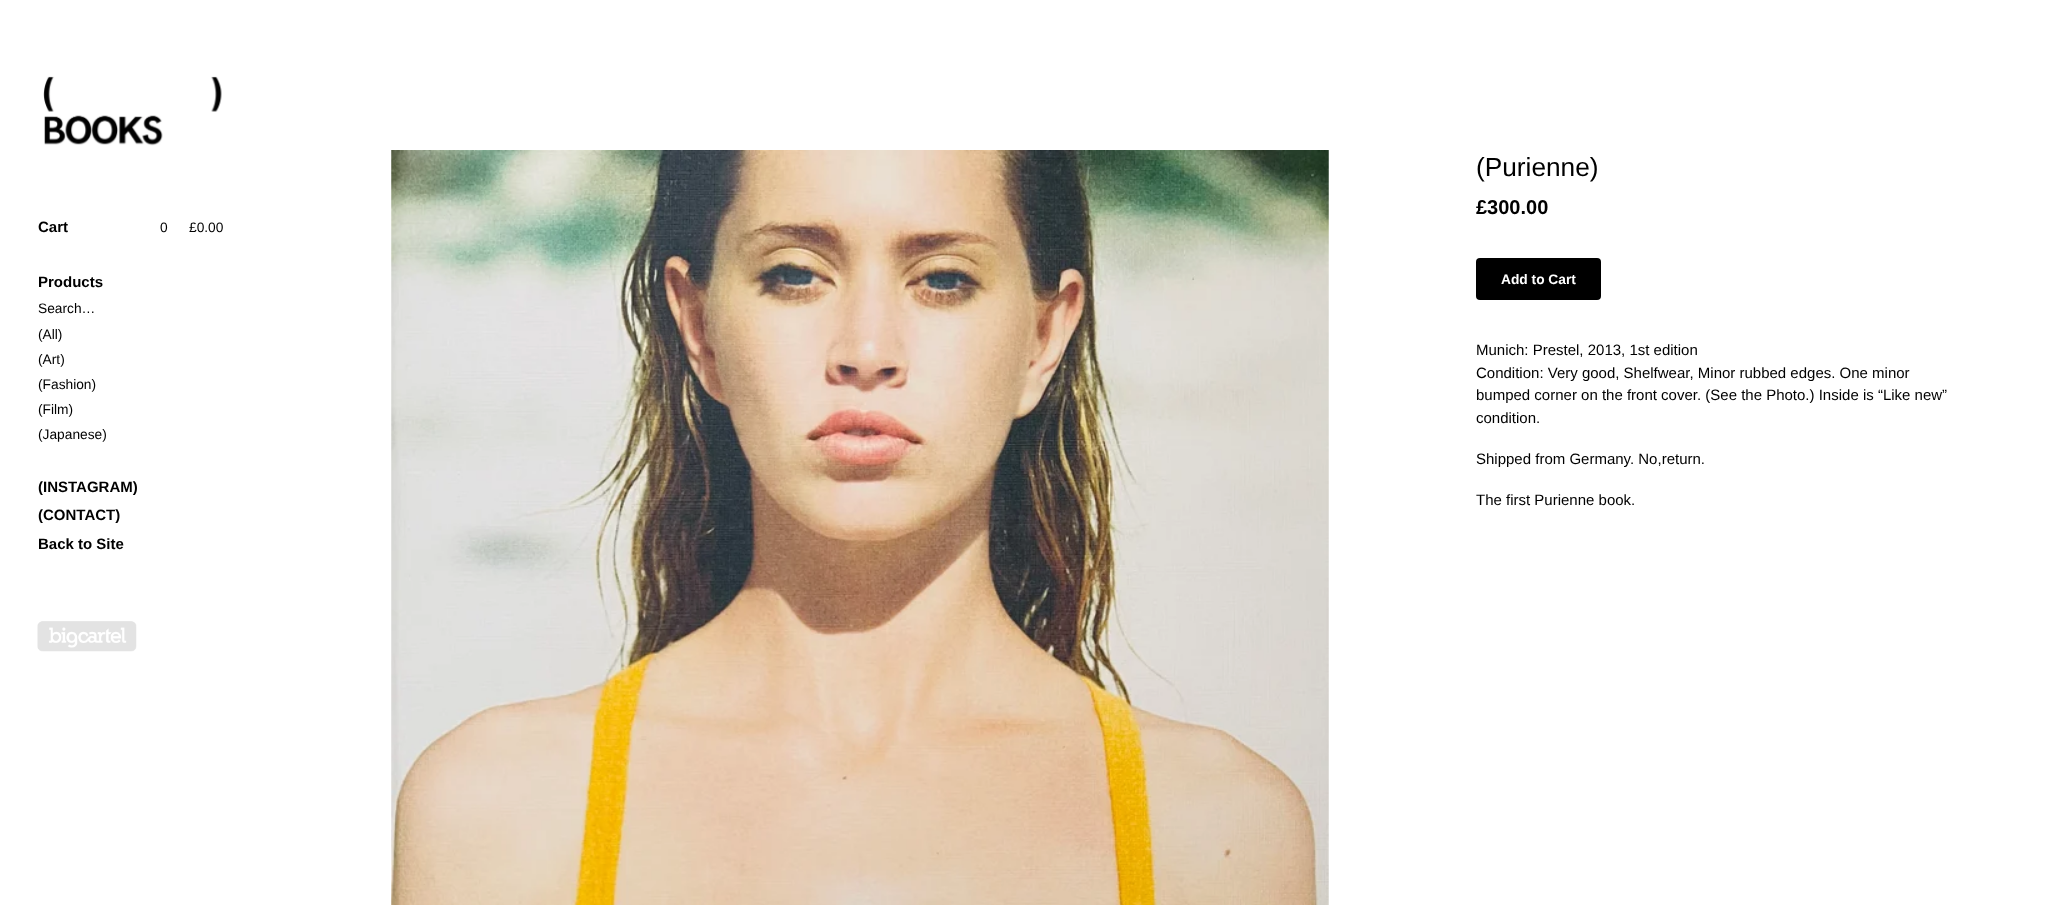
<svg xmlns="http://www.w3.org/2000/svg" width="2045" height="905">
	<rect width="100%" height="100%" fill="#FFFFFF" />
	<image x="43" y="76" width="179" height="70" href="assets/img1.png" />
	<text x="38" y="232" font-family="Liberation Sans" font-size="15" font-weight="700" fill="#000000">Cart</text>
	<g font-family="Liberation Sans" font-size="13.75" fill="#000000">
		<text x="160" y="232">0</text>
		<text x="189" y="232">£0.00</text>
	</g>
	<text x="38" y="287" font-family="Liberation Sans" font-size="15" font-weight="700" fill="#000000">Products</text>
	<g font-family="Liberation Sans" font-size="13.75" fill="#000000">
		<text x="38" y="313">Search…</text>
		<text x="38" y="339">(All)</text>
		<text x="38" y="364">(Art)</text>
		<text x="38" y="389">(Fashion)</text>
		<text x="38" y="414">(Film)</text>
		<text x="38" y="439">(Japanese)</text>
	</g>
	<g font-family="Liberation Sans" font-size="15" font-weight="700" fill="#000000">
		<text x="38" y="492">(INSTAGRAM)</text>
		<text x="38" y="520">(CONTACT)</text>
		<text x="38" y="549">Back to Site</text>
	</g>
	<image x="37" y="621" width="100" height="31" href="assets/img2.png" />
	<image x="391" y="150" width="938" height="755" href="assets/img3.png" />
	<text x="1476" y="176" font-family="Liberation Sans" font-size="26.25" fill="#000000">(Purienne)</text>
	<text x="1476" y="214" font-family="Liberation Sans" font-size="20" font-weight="700" fill="#000000">£300.00</text>
	<rect x="1476" y="258" width="125" height="42" rx="4" fill="#000000" />
	<text x="1501" y="284" font-family="Liberation Sans" font-size="13.75" font-weight="700" fill="#FFFFFF">Add to Cart</text>
	<g font-family="Liberation Sans" font-size="15" fill="#000000">
		<text x="1476" y="355">Munich: Prestel, 2013, 1st edition</text>
		<text x="1476" y="378">Condition: Very good, Shelfwear, Minor rubbed edges. One minor</text>
		<text x="1476" y="400">bumped corner on the front cover. (See the Photo.) Inside is “Like new”</text>
		<text x="1476" y="423">condition.</text>
		<text x="1476" y="464">Shipped from Germany. No,return.</text>
		<text x="1476" y="505">The first Purienne book.</text>
	</g>
</svg>
